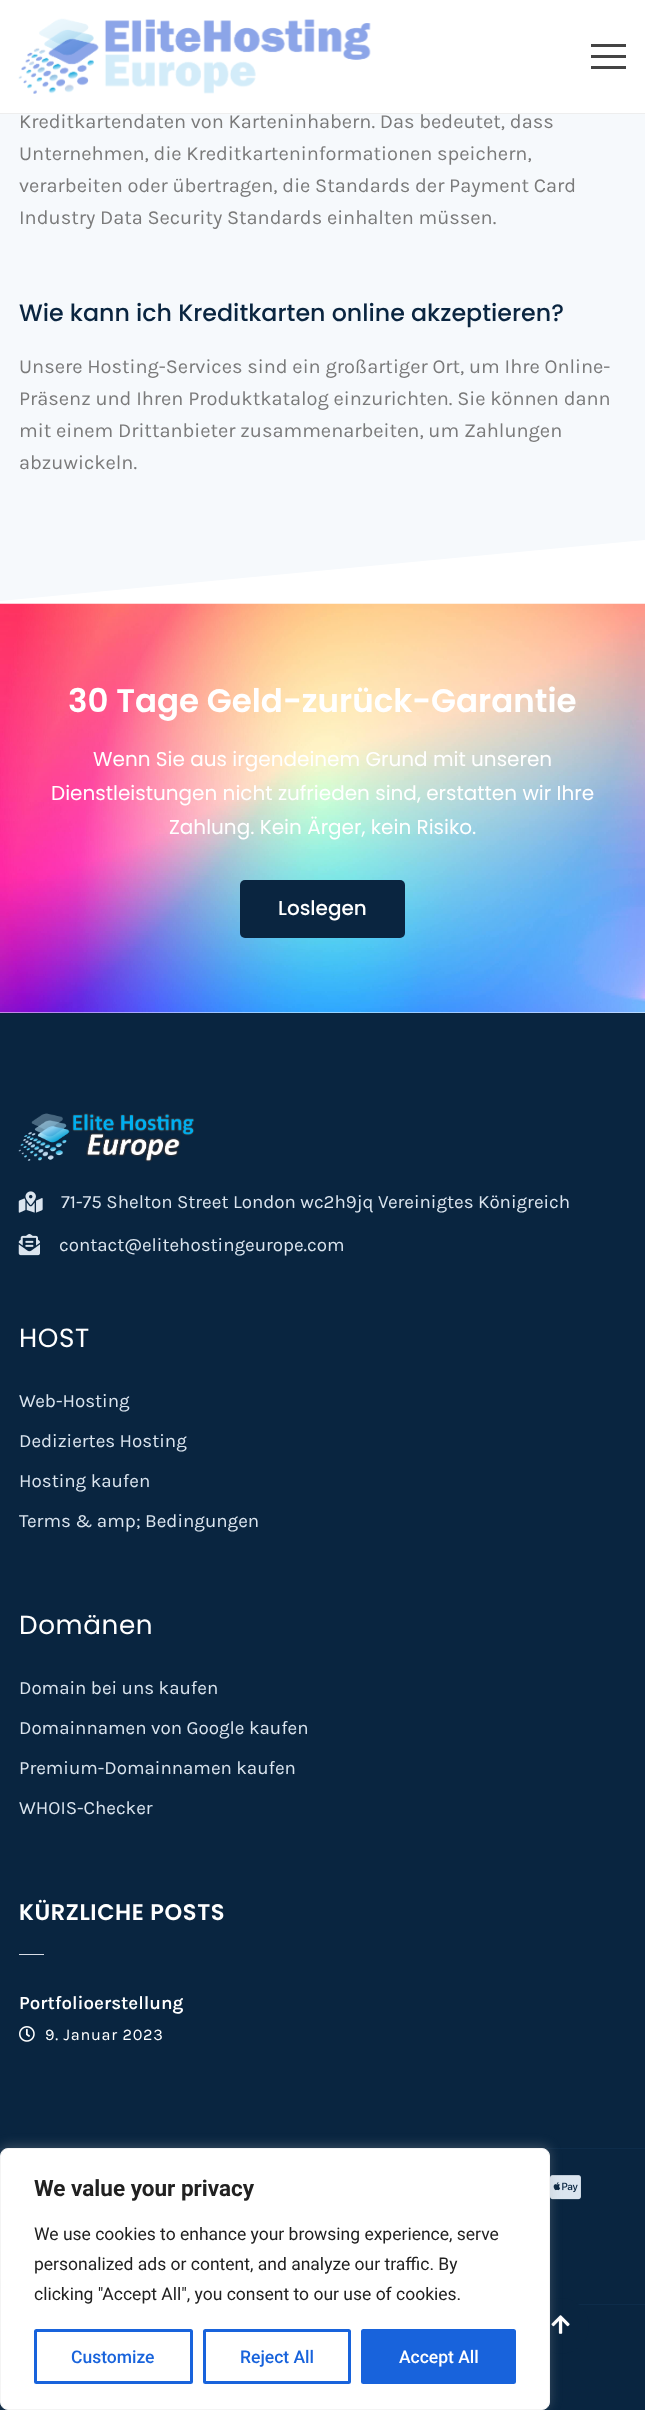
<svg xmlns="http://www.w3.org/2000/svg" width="645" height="2410">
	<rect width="100%" height="100%" fill="#FFFFFF" />
	<rect x="0" y="113" width="645" height="1" fill="#EEEEEE" />
	<image x="18" y="18" width="353" height="76" href="assets/img1.png" />
	<rect x="591" y="44" width="35" height="3" fill="#444444" />
	<rect x="591" y="55" width="35" height="3" fill="#444444" />
	<rect x="591" y="66" width="35" height="3" fill="#444444" />
	<rect x="0" y="114" width="645" height="487" fill="#F6F9FC" />
	<g font-family="Karla" font-size="20" fill="#7A7A7A">
		<text x="19" y="128">Kreditkartendaten von Karteninhabern. Das bedeutet, dass</text>
		<text x="19" y="160">Unternehmen, die Kreditkarteninformationen speichern,</text>
		<text x="19" y="192">verarbeiten oder übertragen, die Standards der Payment Card</text>
		<text x="19" y="224">Industry Data Security Standards einhalten müssen.</text>
	</g>
	<text x="19" y="321" font-family="Poppins" font-size="23.75" font-weight="500" fill="#0A2540">Wie kann ich Kreditkarten online akzeptieren?</text>
	<g font-family="Karla" font-size="20" fill="#7A7A7A">
		<text x="19" y="373">Unsere Hosting-Services sind ein großartiger Ort, um Ihre Online-</text>
		<text x="19" y="405">Präsenz und Ihren Produktkatalog einzurichten. Sie können dann</text>
		<text x="19" y="437">mit einem Drittanbieter zusammenarbeiten, um Zahlungen</text>
		<text x="19" y="469">abzuwickeln.</text>
	</g>
	<path d="M-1 601V604H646V540Z" fill="#FFFFFF" />
	<image x="0" y="603" width="645" height="410" href="assets/img2.png" />
	<text x="68" y="712" font-family="Poppins" font-size="32.5" font-weight="600" fill="#FFFFFF">30 Tage Geld-zurück-Garantie</text>
	<g font-family="Poppins" font-size="20" fill="#FFFFFF">
		<text x="93" y="766">Wenn Sie aus irgendeinem Grund mit unseren</text>
		<text x="51" y="800">Dienstleistungen nicht zufrieden sind, erstatten wir Ihre</text>
		<text x="169" y="834">Zahlung. Kein Ärger, kein Risiko.</text>
	</g>
	<rect x="240" y="880" width="165" height="58" rx="5" fill="#0A2540" />
	<text x="278" y="915" font-family="Poppins" font-size="20" font-weight="500" fill="#FFFFFF">Loslegen</text>
	<rect x="0" y="1013" width="645" height="1397" fill="#092540" />
	<image x="18" y="1113" width="177" height="49" href="assets/img3.png" />
	<image x="18" y="1191" width="25" height="22" href="assets/img4.png" />
	<text x="61" y="1208" font-family="Karla" font-size="18.75" fill="#DBE5EF">71-75 Shelton Street London wc2h9jq Vereinigtes Königreich</text>
	<image x="18" y="1233" width="22" height="23" href="assets/img5.png" />
	<text x="59" y="1251" font-family="Karla" font-size="18.75" fill="#DBE5EF">contact@elitehostingeurope.com</text>
	<text x="19" y="1347" font-family="Poppins" font-size="26.25" letter-spacing="0.6" fill="#FFFFFF">HOST</text>
	<g font-family="Karla" font-size="18.75" fill="#DBE5EF">
		<text x="19" y="1407">Web-Hosting</text>
		<text x="19" y="1447">Dediziertes Hosting</text>
		<text x="19" y="1487">Hosting kaufen</text>
		<text x="19" y="1527">Terms &amp; amp; Bedingungen</text>
	</g>
	<text x="19" y="1634" font-family="Poppins" font-size="26.25" letter-spacing="0.6" fill="#FFFFFF">Domänen</text>
	<g font-family="Karla" font-size="18.75" fill="#DBE5EF">
		<text x="19" y="1694">Domain bei uns kaufen</text>
		<text x="19" y="1734">Domainnamen von Google kaufen</text>
		<text x="19" y="1774">Premium-Domainnamen kaufen</text>
		<text x="19" y="1814">WHOIS-Checker</text>
	</g>
	<text x="19" y="1920" font-family="Poppins" font-size="22.5" font-weight="600" letter-spacing="0.6" fill="#FFFFFF">KÜRZLICHE POSTS</text>
	<rect x="19" y="1954" width="25" height="1" fill="#D8DDE6" />
	<text x="19" y="2009" font-family="Karla" font-size="18.75" font-weight="600" fill="#FFFFFF">Portfolioerstellung</text>
	<image x="19" y="2026" width="16" height="16" href="assets/img6.png" />
	<text x="45" y="2040" font-family="Karla" font-size="16.25" letter-spacing="0.75" fill="#FFFFFF">9. Januar 2023</text>
	<rect x="0" y="2148" width="645" height="1" fill="#0D2C4A" />
	<rect x="578" y="2304" width="67" height="1" fill="#0D2C4A" />
	<image x="550" y="2175" width="31" height="25" href="assets/img7.png" />
	<circle cx="561" cy="2326" r="28" fill="#092540" />
	<image x="551" y="2315" width="19" height="19" href="assets/img8.png" />
	<rect x="0" y="2146" width="550" height="263" rx="8" fill="#ACABAB" fill-opacity="0.3" filter="blur(6px)" />
	<rect x="0.5" y="2148.5" width="549" height="261" rx="7.5" fill="#FFFFFF" stroke="#F4F4F4" />
	<text x="34" y="2196" font-family="Roboto" font-size="22.5" font-weight="700" fill="#212121">We value your privacy</text>
	<g font-family="Roboto" font-size="17.5" fill="#212121">
		<text x="34" y="2240">We use cookies to enhance your browsing experience, serve</text>
		<text x="34" y="2270">personalized ads or content, and analyze our traffic. By</text>
		<text x="34" y="2300">clicking "Accept All", you consent to our use of cookies.</text>
	</g>
	<rect x="35.5" y="2330.5" width="156" height="52" rx="1" fill="none" stroke="#1863DC" stroke-width="3" />
	<text x="71" y="2363" font-family="Roboto" font-size="17.5" font-weight="500" fill="#1863DC">Customize</text>
	<rect x="204.5" y="2330.5" width="145" height="52" rx="1" fill="none" stroke="#1863DC" stroke-width="3" />
	<text x="240" y="2363" font-family="Roboto" font-size="17.5" font-weight="500" fill="#1863DC">Reject All</text>
	<rect x="362.5" y="2330.5" width="152" height="52" rx="1" fill="#1863DC" stroke="#1863DC" stroke-width="3" />
	<text x="399" y="2363" font-family="Roboto" font-size="17.5" font-weight="500" fill="#FFFFFF">Accept All</text>
</svg>
